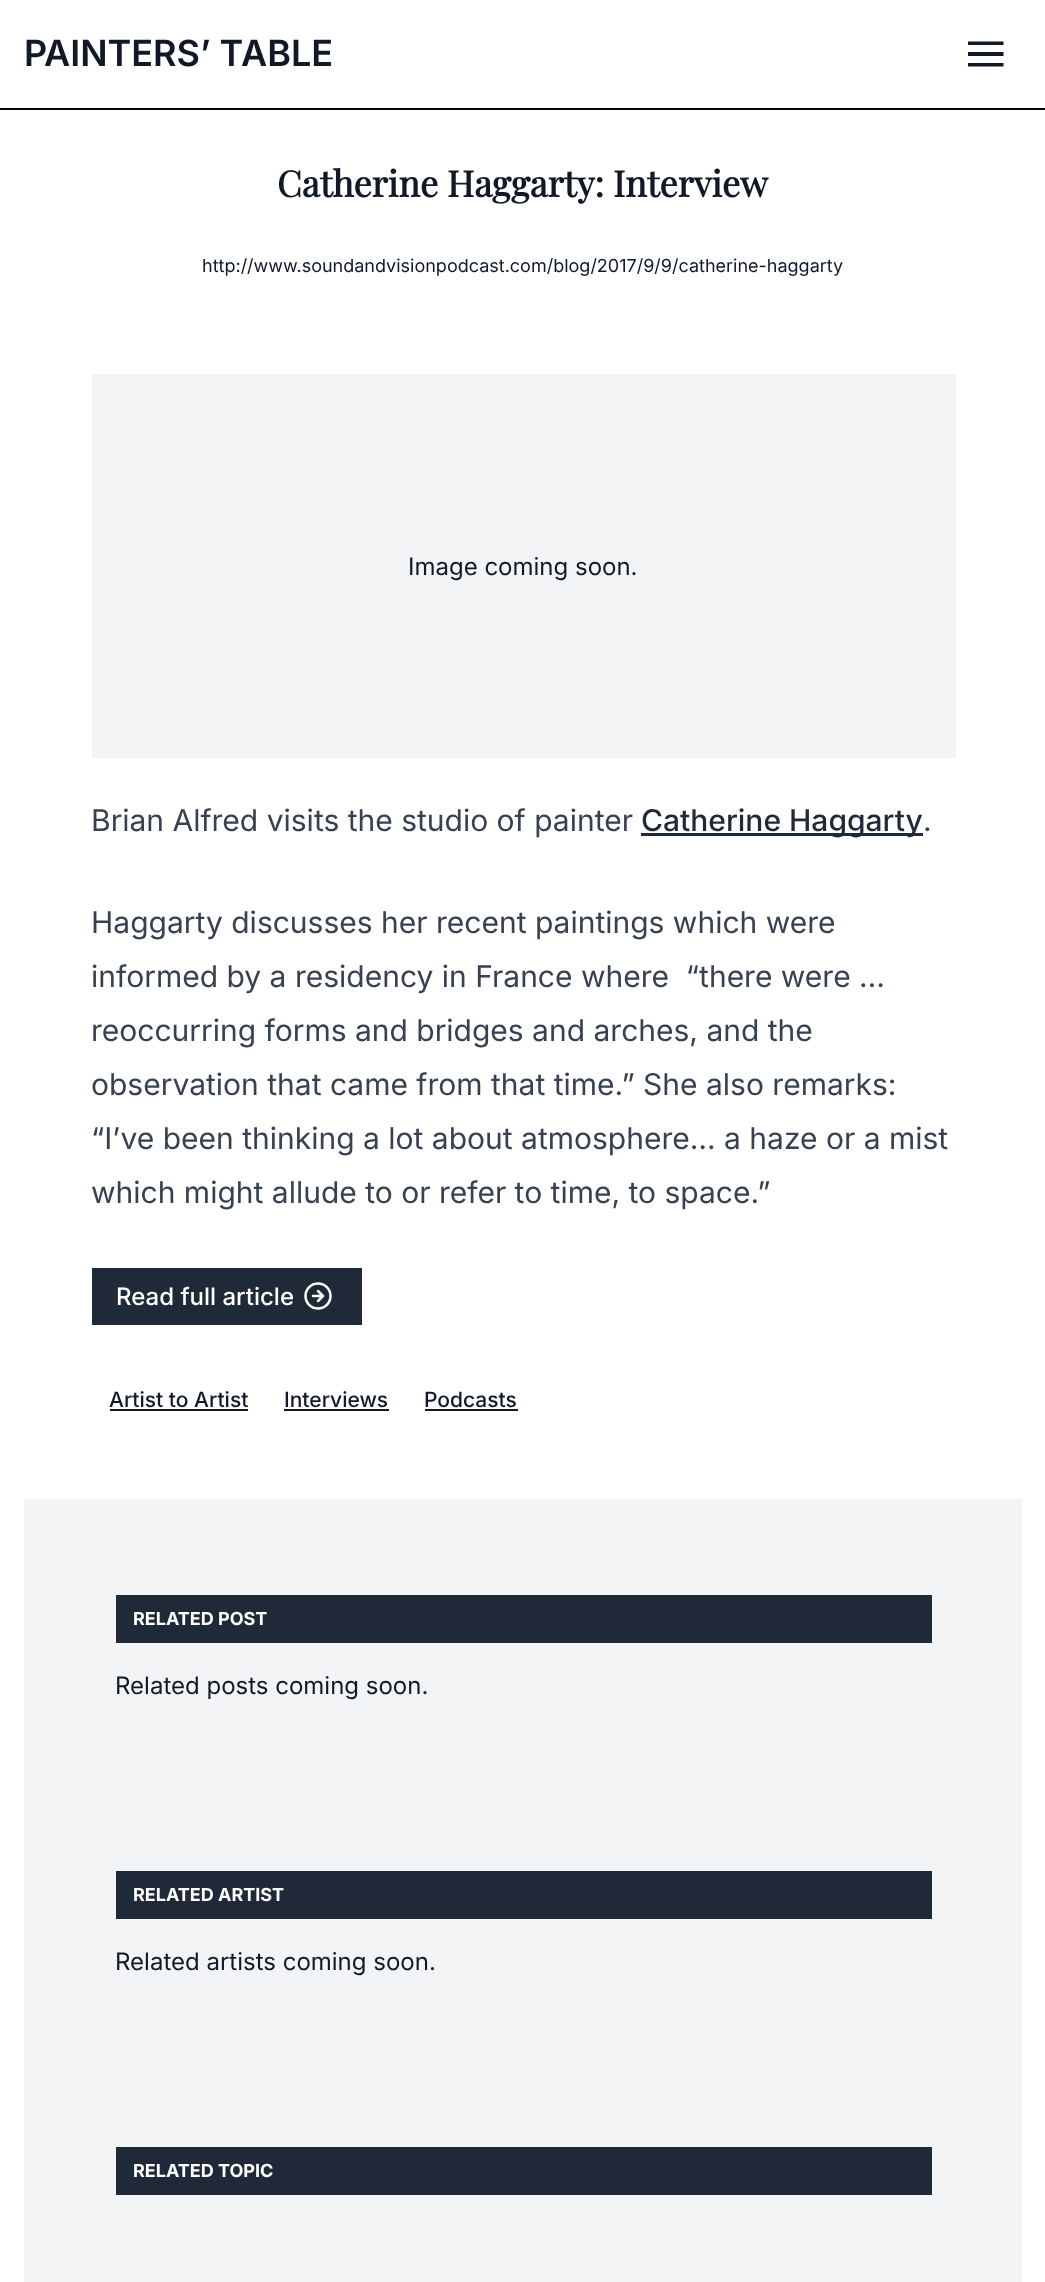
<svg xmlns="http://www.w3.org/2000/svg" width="1045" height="2282">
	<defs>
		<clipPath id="clip1"><rect x="968" y="36" width="36" height="36" /></clipPath>
	</defs>
	<rect width="100%" height="100%" fill="#FFFFFF" />
	<rect x="0" y="108" width="1045" height="2" fill="#000000" />
	<g font-family="Inter" font-size="36" font-weight="600" fill="#111827">
		<text x="24" y="66">P</text>
		<text x="44" y="66">AINTERS’ T</text>
		<text x="241" y="66">ABLE</text>
	</g>
	<g clip-path="url(#clip1)">
		<path d="M967.5 41.5H1003.5V45H967.5ZM967.5 52H1003.5V56H967.5ZM967.5 63H1003.5V66.5H967.5Z" fill="#111827" fill-rule="evenodd" />
	</g>
	<text x="277" y="197" font-family="Playfair Display" font-size="36" font-weight="700" fill="#111827">Catherine Haggarty: Interview</text>
	<text x="202" y="272" font-family="Inter" font-size="18" fill="#111827">http://www.soundandvisionpodcast.com/blog/2017/9/9/catherine-haggarty</text>
	<rect x="92" y="374" width="864" height="384" fill="#F3F4F6" />
	<text x="408" y="575" font-family="Inter" font-size="24" fill="#111827">Image coming soon.</text>
	<text x="91" y="831" font-family="Inter" font-size="30" fill="#374151">Brian Alfred visits the studio of painter</text>
	<rect x="641" y="833" width="282" height="3" fill="#1F2937" />
	<text x="641" y="831" font-family="Inter" font-size="30" font-weight="500" fill="#1F2937">Catherine Haggarty</text>
	<g font-family="Inter" font-size="30" fill="#374151">
		<text x="923" y="831">.</text>
		<text x="91" y="933">Haggarty discusses her recent paintings which were</text>
		<text x="91" y="987" xml:space="preserve">informed by a residency in France where  “there were …</text>
		<text x="91" y="1041">reoccurring forms and bridges and arches, and the</text>
		<text x="91" y="1095">observation that came from that time.” She also remarks:</text>
		<text x="91" y="1149">“I’ve been thinking a lot about atmosphere… a haze or a mist</text>
		<text x="91" y="1203">which might allude to or refer to time, to space.”</text>
	</g>
	<rect x="92" y="1268" width="270" height="57" fill="#1F2937" />
	<text x="116" y="1305" font-family="Inter" font-size="24" font-weight="500" fill="#FFFFFF">Read full article</text>
	<circle cx="318" cy="1296" r="12.5" fill="none" stroke="#FFFFFF" stroke-width="2.5" />
	<path d="M318 1301L323 1296L318 1291M313 1296H323" fill="none" stroke="#FFFFFF" stroke-width="2.5" stroke-linecap="round" stroke-linejoin="round" />
	<text x="109" y="1407" font-family="Inter" font-size="21" font-weight="500" fill="#111827">Artist to Artist</text>
	<rect x="110" y="1409" width="138" height="2" fill="#111827" />
	<text x="284" y="1407" font-family="Inter" font-size="21" font-weight="500" fill="#111827">Interviews</text>
	<rect x="284" y="1409" width="105" height="2" fill="#111827" />
	<text x="424" y="1407" font-family="Inter" font-size="21" font-weight="500" fill="#111827">Podcasts</text>
	<rect x="425" y="1409" width="93" height="2" fill="#111827" />
	<rect x="24" y="1499" width="998" height="783" fill="#F3F4F6" />
	<rect x="116" y="1595" width="816" height="48" fill="#1F2937" />
	<text x="133" y="1625" font-family="Inter" font-size="18" font-weight="700" fill="#FFFFFF">RELATED POST</text>
	<text x="115" y="1694" font-family="Inter" font-size="24" fill="#111827">Related posts coming soon.</text>
	<rect x="116" y="1871" width="816" height="48" fill="#1F2937" />
	<text x="133" y="1901" font-family="Inter" font-size="18" font-weight="700" fill="#FFFFFF">RELATED ARTIST</text>
	<text x="115" y="1970" font-family="Inter" font-size="24" fill="#111827">Related artists coming soon.</text>
	<rect x="116" y="2147" width="816" height="48" fill="#1F2937" />
	<text x="133" y="2177" font-family="Inter" font-size="18" font-weight="700" fill="#FFFFFF">RELATED TOPIC</text>
</svg>
